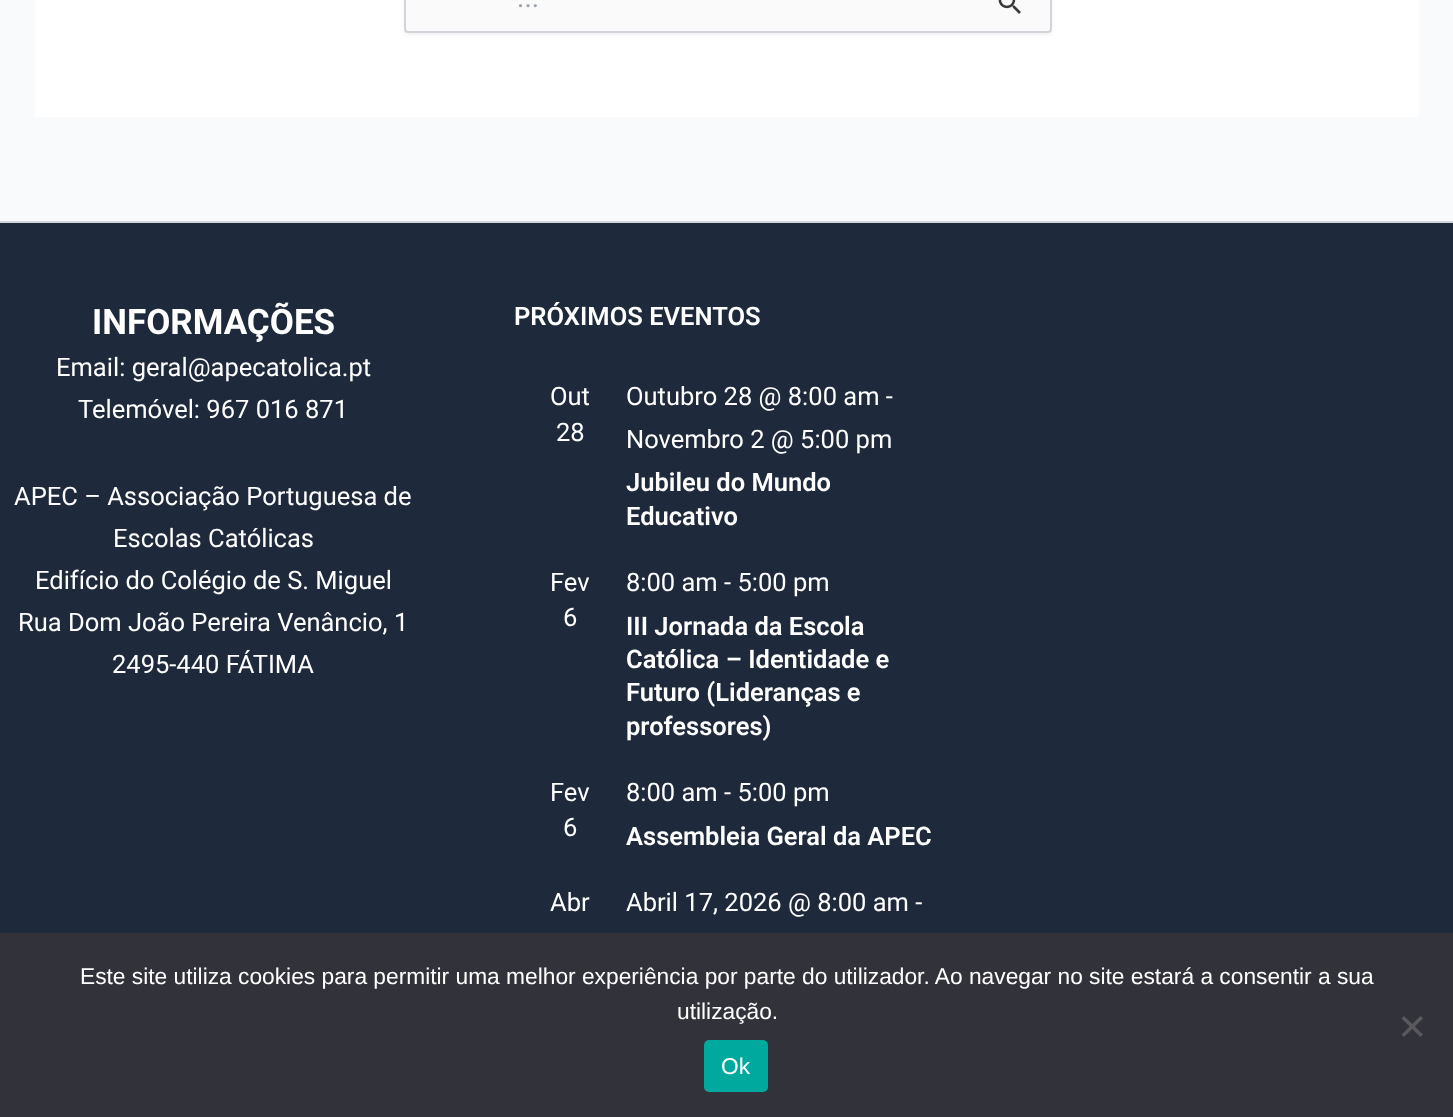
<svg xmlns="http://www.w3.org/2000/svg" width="1453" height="1117">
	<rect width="100%" height="100%" fill="#F9FAFB" />
	<rect x="35" y="0" width="1384" height="117" fill="#FFFFFF" />
	<rect x="404" y="-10" width="648" height="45" rx="4" fill="#000000" fill-opacity="0.05" filter="blur(2px)" />
	<rect x="405" y="-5" width="646" height="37" rx="3" fill="#FAFAFA" stroke="#D1D5DB" stroke-width="2" />
	<text x="517" y="7" font-family="Roboto" font-size="28" fill="#9CA3AF">...</text>
	<image x="998" y="0" width="23" height="14" href="assets/img1.png" />
	<rect x="0" y="223" width="1453" height="710" fill="#1E293B" />
	<rect x="0" y="221" width="1453" height="2" fill="#D1D5DB" />
	<text x="92" y="334" font-family="Roboto" font-size="35" font-weight="700" fill="#FFFFFF">INFORMAÇÕES</text>
	<g font-family="Roboto" font-size="25.5" fill="#FFFFFF">
		<text x="56" y="376">Email: geral@apecatolica.pt</text>
		<text x="78" y="418">Telemóvel: 967 016 871</text>
		<text x="14" y="505">APEC – Associação Portuguesa de</text>
		<text x="113" y="547">Escolas Católicas</text>
		<text x="35" y="589">Edifício do Colégio de S. Miguel</text>
		<text x="18" y="631">Rua Dom João Pereira Venâncio, 1</text>
		<text x="112" y="673">2495-440 FÁTIMA</text>
	</g>
	<text x="514" y="325" font-family="Roboto" font-size="25.5" font-weight="600" fill="#FFFFFF">PRÓXIMOS EVENTOS</text>
	<g font-family="Roboto" font-size="25.5" fill="#FFFFFF">
		<text x="550" y="405">Out</text>
		<text x="556" y="441">28</text>
		<text x="626" y="405">Outubro 28 @ 8:00 am -</text>
		<text x="626" y="448">Novembro 2 @ 5:00 pm</text>
	</g>
	<g font-family="Roboto" font-size="25.5" font-weight="600" fill="#FFFFFF">
		<text x="626" y="491">Jubileu do Mundo</text>
		<text x="626" y="525">Educativo</text>
	</g>
	<g font-family="Roboto" font-size="25.5" fill="#FFFFFF">
		<text x="550" y="591">Fev</text>
		<text x="563" y="626">6</text>
		<text x="626" y="591">8:00 am - 5:00 pm</text>
	</g>
	<g font-family="Roboto" font-size="25.5" font-weight="600" fill="#FFFFFF">
		<text x="626" y="635">III Jornada da Escola</text>
		<text x="626" y="668">Católica – Identidade e</text>
		<text x="626" y="701">Futuro (Lideranças e</text>
		<text x="626" y="735">professores)</text>
	</g>
	<g font-family="Roboto" font-size="25.5" fill="#FFFFFF">
		<text x="550" y="801">Fev</text>
		<text x="563" y="836">6</text>
		<text x="626" y="801">8:00 am - 5:00 pm</text>
	</g>
	<text x="626" y="845" font-family="Roboto" font-size="25.5" font-weight="600" fill="#FFFFFF">Assembleia Geral da APEC</text>
	<g font-family="Roboto" font-size="25.5" fill="#FFFFFF">
		<text x="550" y="911">Abr</text>
		<text x="626" y="911">Abril 17, 2026 @ 8:00 am -</text>
	</g>
	<rect x="0" y="933" width="1453" height="184" fill="#32323A" />
	<g font-family="Liberation Sans" font-size="22.75" fill="#FFFFFF">
		<text x="80" y="984">Este site utiliza cookies para permitir uma melhor experiência por parte do utilizador. Ao navegar no site estará a consentir a sua</text>
		<text x="677" y="1019">utilização.</text>
	</g>
	<path d="M1420.5 1016L1423 1018.5L1404 1037L1401.5 1034.5Z" fill="#59595D" />
	<path d="M1401.5 1018.5L1404 1016L1423 1034.5L1420.5 1037Z" fill="#59595D" />
	<rect x="704" y="1040" width="64" height="52" rx="5" fill="#00A99D" />
	<text x="721" y="1074" font-family="Liberation Sans" font-size="22.75" fill="#FFFFFF">Ok</text>
</svg>
